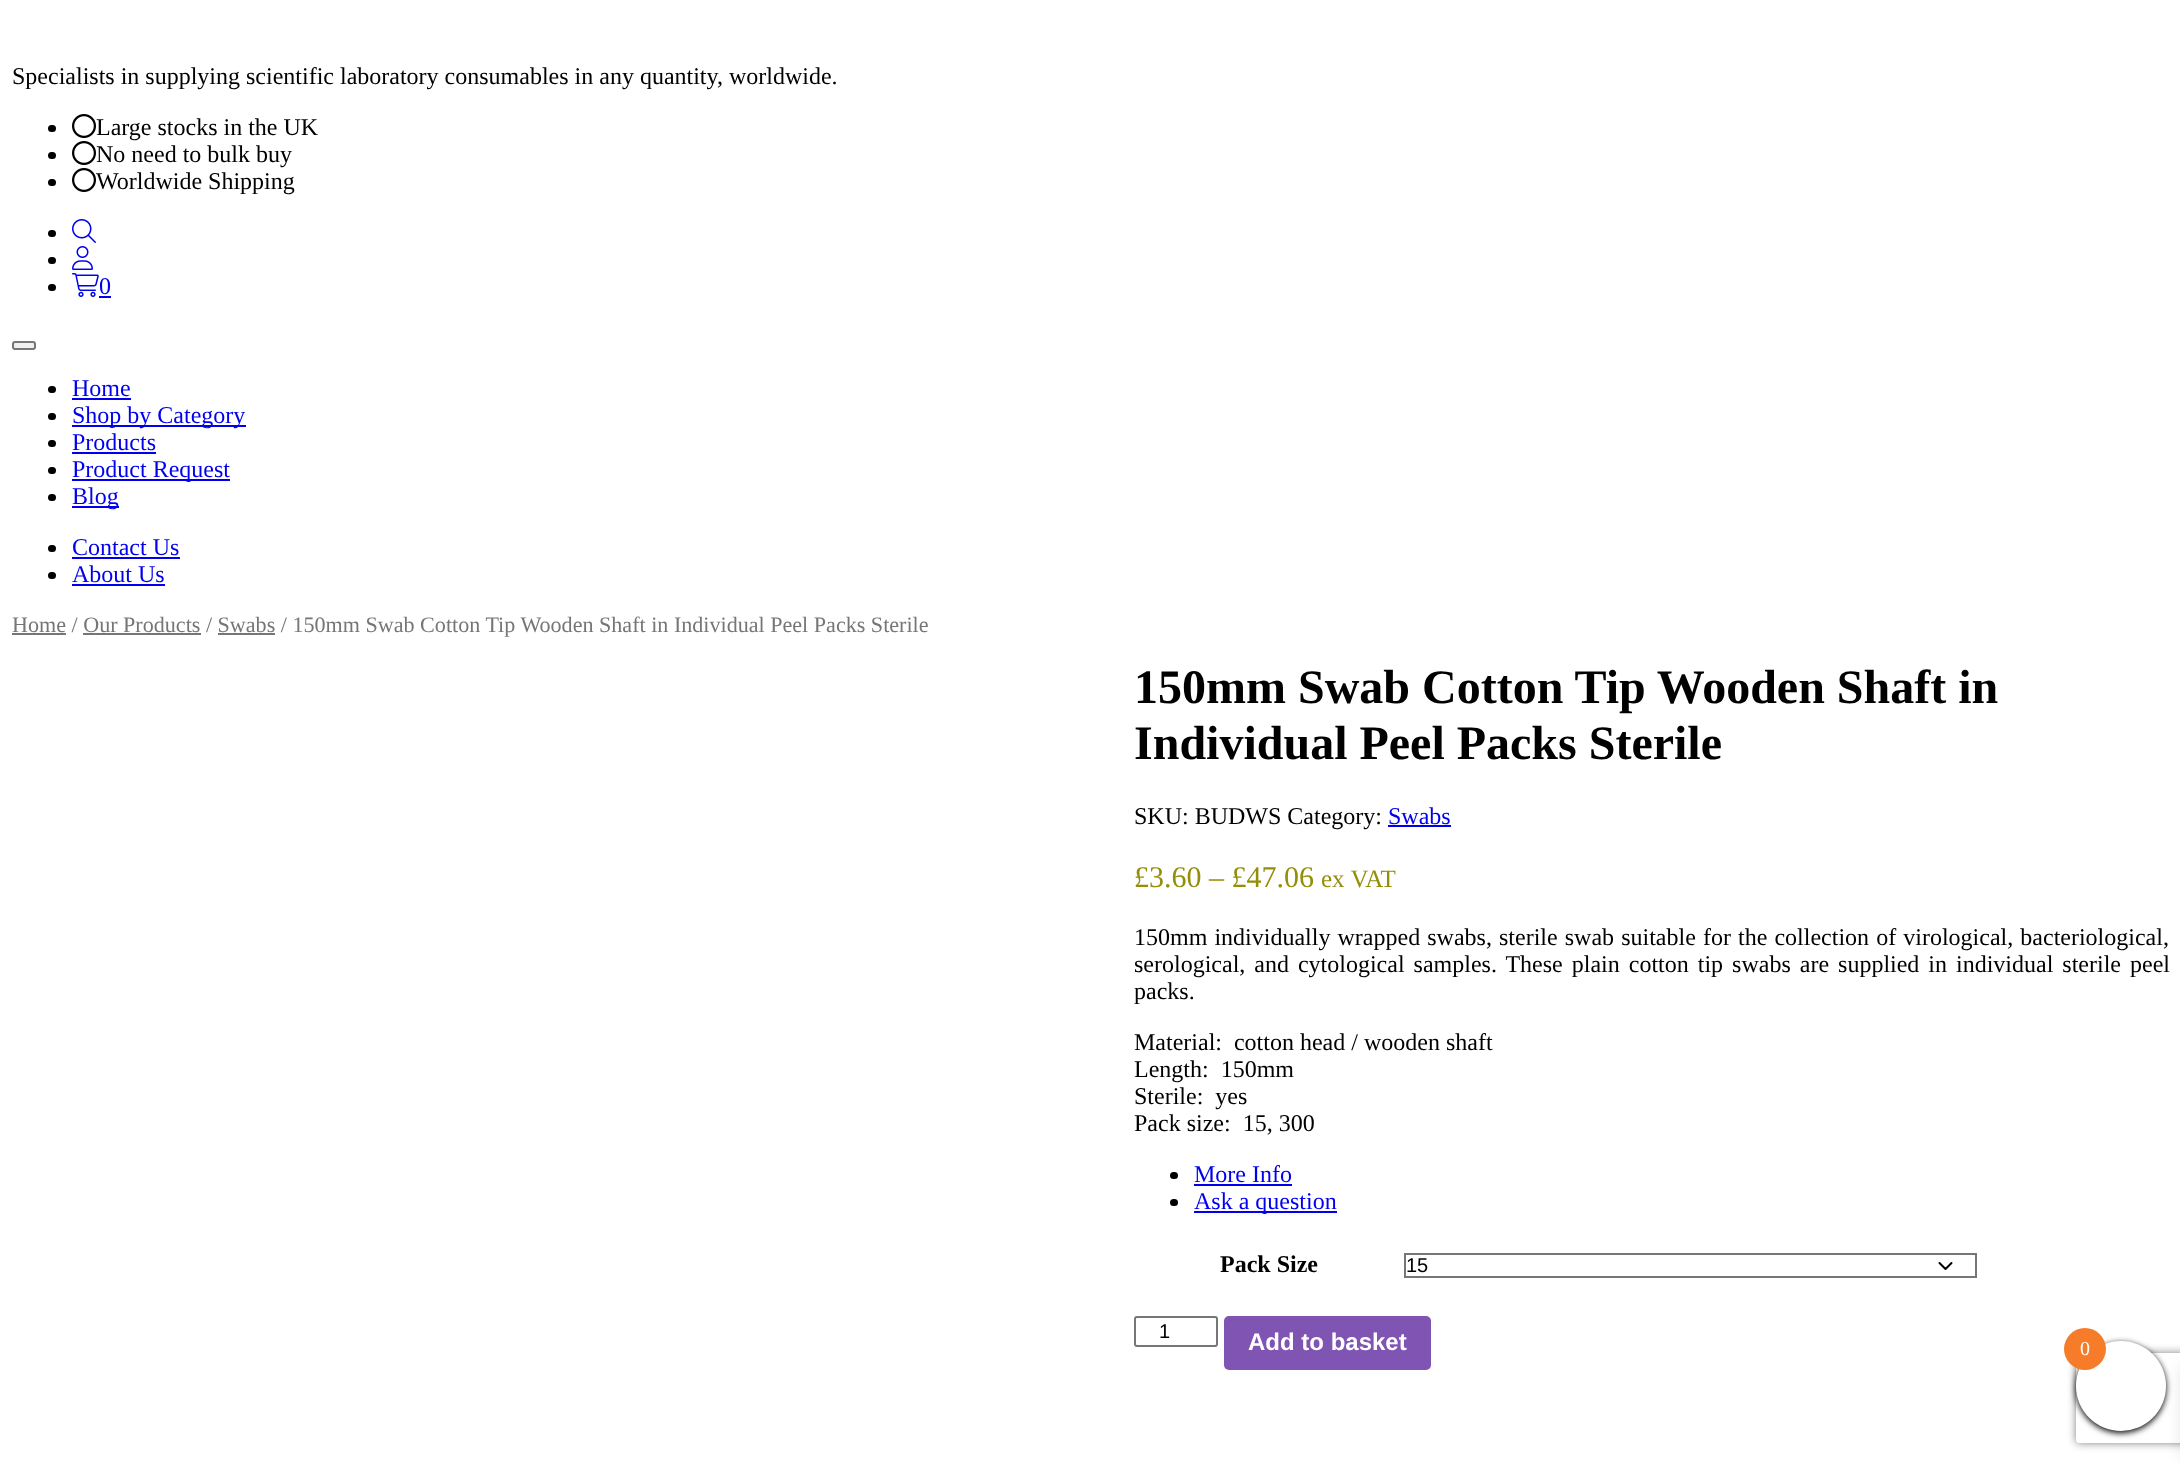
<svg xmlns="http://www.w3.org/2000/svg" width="2180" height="1464">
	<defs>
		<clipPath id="clip1"><path d="M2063 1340H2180V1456H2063ZM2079 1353H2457C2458.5 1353 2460 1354.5 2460 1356V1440C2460 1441.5 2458.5 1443 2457 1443H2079C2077.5 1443 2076 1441.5 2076 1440V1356C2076 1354.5 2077.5 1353 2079 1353Z" clip-rule="evenodd" /></clipPath>
	</defs>
	<rect width="100%" height="100%" fill="#FFFFFF" />
	<text x="12" y="84" font-family="Liberation Serif" font-size="24" fill="#000000">Specialists in supplying scientific laboratory consumables in any quantity, worldwide.</text>
	<rect x="48" y="125" width="8" height="7" rx="3.5" fill="#000000" />
	<image x="72" y="114" width="24" height="24" href="assets/img1.png" />
	<text x="96" y="135" font-family="Liberation Serif" font-size="24" fill="#000000">Large stocks in the UK</text>
	<rect x="48" y="152" width="8" height="7" rx="3.5" fill="#000000" />
	<image x="72" y="141" width="24" height="24" href="assets/img1.png" />
	<text x="96" y="162" font-family="Liberation Serif" font-size="24" fill="#000000">No need to bulk buy</text>
	<rect x="48" y="179" width="8" height="7" rx="3.5" fill="#000000" />
	<image x="72" y="168" width="24" height="24" href="assets/img1.png" />
	<text x="96" y="189" font-family="Liberation Serif" font-size="24" fill="#000000">Worldwide Shipping</text>
	<rect x="48" y="230" width="8" height="7" rx="3.5" fill="#000000" />
	<image x="72" y="219" width="24" height="24" href="assets/img2.png" />
	<rect x="48" y="257" width="8" height="7" rx="3.5" fill="#000000" />
	<image x="72" y="246" width="21" height="24" href="assets/img3.png" />
	<rect x="48" y="284" width="8" height="7" rx="3.5" fill="#000000" />
	<image x="72" y="273" width="27" height="24" href="assets/img4.png" />
	<text x="99" y="294" font-family="Liberation Serif" font-size="24" fill="#0000EE">0</text>
	<rect x="99" y="296" width="12" height="2" fill="#0000EE" />
	<rect x="13" y="342" width="22" height="7" rx="2" fill="#EFEFEF" stroke="#767676" stroke-width="2" />
	<rect x="48" y="386" width="8" height="7" rx="3.5" fill="#000000" />
	<text x="72" y="396" font-family="Liberation Serif" font-size="24" fill="#0000EE">Home</text>
	<rect x="72" y="398" width="59" height="2" fill="#0000EE" />
	<rect x="48" y="413" width="8" height="7" rx="3.5" fill="#000000" />
	<rect x="72" y="425" width="174" height="2" fill="#0000EE" />
	<text x="72" y="423" font-family="Liberation Serif" font-size="24" fill="#0000EE">Shop by Category</text>
	<rect x="48" y="440" width="8" height="7" rx="3.5" fill="#000000" />
	<text x="72" y="450" font-family="Liberation Serif" font-size="24" fill="#0000EE">Products</text>
	<rect x="72" y="452" width="84" height="2" fill="#0000EE" />
	<rect x="48" y="467" width="8" height="7" rx="3.5" fill="#000000" />
	<rect x="72" y="479" width="158" height="2" fill="#0000EE" />
	<text x="72" y="477" font-family="Liberation Serif" font-size="24" fill="#0000EE">Product Request</text>
	<rect x="48" y="494" width="8" height="7" rx="3.5" fill="#000000" />
	<rect x="72" y="506" width="47" height="2" fill="#0000EE" />
	<text x="72" y="504" font-family="Liberation Serif" font-size="24" fill="#0000EE">Blog</text>
	<rect x="48" y="545" width="8" height="7" rx="3.5" fill="#000000" />
	<text x="72" y="555" font-family="Liberation Serif" font-size="24" fill="#0000EE">Contact Us</text>
	<rect x="72" y="557" width="108" height="2" fill="#0000EE" />
	<rect x="48" y="572" width="8" height="7" rx="3.5" fill="#000000" />
	<text x="72" y="582" font-family="Liberation Serif" font-size="24" fill="#0000EE">About Us</text>
	<rect x="72" y="584" width="93" height="2" fill="#0000EE" />
	<rect x="12" y="633" width="54" height="2" fill="#767676" />
	<text x="12" y="632" font-family="Liberation Serif" font-size="22.1" fill="#767676">Home / Our Products / Swabs / 150mm Swab Cotton Tip Wooden Shaft in Individual Peel Packs Sterile</text>
	<rect x="83" y="633" width="118" height="2" fill="#767676" />
	<rect x="218" y="633" width="57" height="2" fill="#767676" />
	<g font-family="Liberation Serif" font-size="48" font-weight="700" fill="#000000">
		<text x="1134" y="703">150mm Swab Cotton Tip Wooden Shaft in</text>
		<text x="1134" y="759">Individual Peel Packs Sterile</text>
	</g>
	<text x="1134" y="824" font-family="Liberation Serif" font-size="24" fill="#000000">SKU: BUDWS Category:</text>
	<text x="1388" y="824" font-family="Liberation Serif" font-size="24" fill="#0000EE">Swabs</text>
	<rect x="1388" y="825" width="63" height="2" fill="#0000EE" />
	<text x="1134" y="887" font-family="Liberation Serif" font-size="30" fill="#958E09">£3.60 – £47.06</text>
	<text x="1321" y="887" font-family="Liberation Serif" font-size="25" fill="#958E09">ex VAT</text>
	<g font-family="Liberation Serif" font-size="24" fill="#000000">
		<text x="1134" y="945" word-spacing="1.1">150mm individually wrapped swabs, sterile swab suitable for the collection of virological, bacteriological,</text>
		<text x="1134" y="972" word-spacing="3">serological, and cytological samples. These plain cotton tip swabs are supplied in individual sterile peel</text>
		<text x="1134" y="999">packs.</text>
		<text x="1134" y="1050" xml:space="preserve">Material:  cotton head / wooden shaft</text>
		<text x="1134" y="1077" xml:space="preserve">Length:  150mm</text>
		<text x="1134" y="1104" xml:space="preserve">Sterile:  yes</text>
		<text x="1134" y="1131" xml:space="preserve">Pack size:  15, 300</text>
	</g>
	<rect x="1170" y="1172" width="8" height="7" rx="3.5" fill="#000000" />
	<text x="1194" y="1182" font-family="Liberation Serif" font-size="24" fill="#0000EE">More Info</text>
	<rect x="1194" y="1184" width="98" height="2" fill="#0000EE" />
	<rect x="1170" y="1199" width="8" height="7" rx="3.5" fill="#000000" />
	<rect x="1194" y="1211" width="143" height="2" fill="#0000EE" />
	<text x="1194" y="1209" font-family="Liberation Serif" font-size="24" fill="#0000EE">Ask a question</text>
	<text x="1220" y="1272" font-family="Liberation Serif" font-size="24" font-weight="700" fill="#000000">Pack Size</text>
	<path d="M1939.5 1263L1945.5 1269L1951.5 1263" fill="none" stroke="#000000" stroke-width="2" stroke-linecap="round" stroke-linejoin="round" />
	<rect x="1405" y="1254" width="571" height="23" fill="none" stroke="#767676" stroke-width="2" />
	<text x="1406" y="1272" font-family="Liberation Sans" font-size="20" fill="#000000">15</text>
	<rect x="1135" y="1317" width="82" height="29" rx="2" fill="none" stroke="#767676" stroke-width="2" />
	<text x="1159" y="1338" font-family="Liberation Sans" font-size="20" fill="#000000">1</text>
	<rect x="1224" y="1316" width="207" height="54" rx="5" fill="#7F54B3" />
	<text x="1248" y="1350" font-family="Liberation Sans" font-size="24" font-weight="700" fill="#FFFFFF">Add to basket</text>
	<g clip-path="url(#clip1)">
		<rect x="2076" y="1353" width="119" height="90" rx="3" fill="#808080" filter="blur(4px)" />
	</g>
	<rect x="2076" y="1343" width="90" height="90" rx="45" fill="#000000" filter="blur(3px)" />
	<rect x="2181" y="1367" width="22" height="90" fill="#000000" fill-opacity="0.1" filter="blur(7.5px)" />
	<circle cx="2121" cy="1386" r="45" fill="#FFFFFF" />
	<circle cx="2085" cy="1349" r="21" fill="#F67C2A" />
	<text x="2080" y="1355" font-family="Liberation Serif" font-size="20" fill="#FFFFFF">0</text>
</svg>
